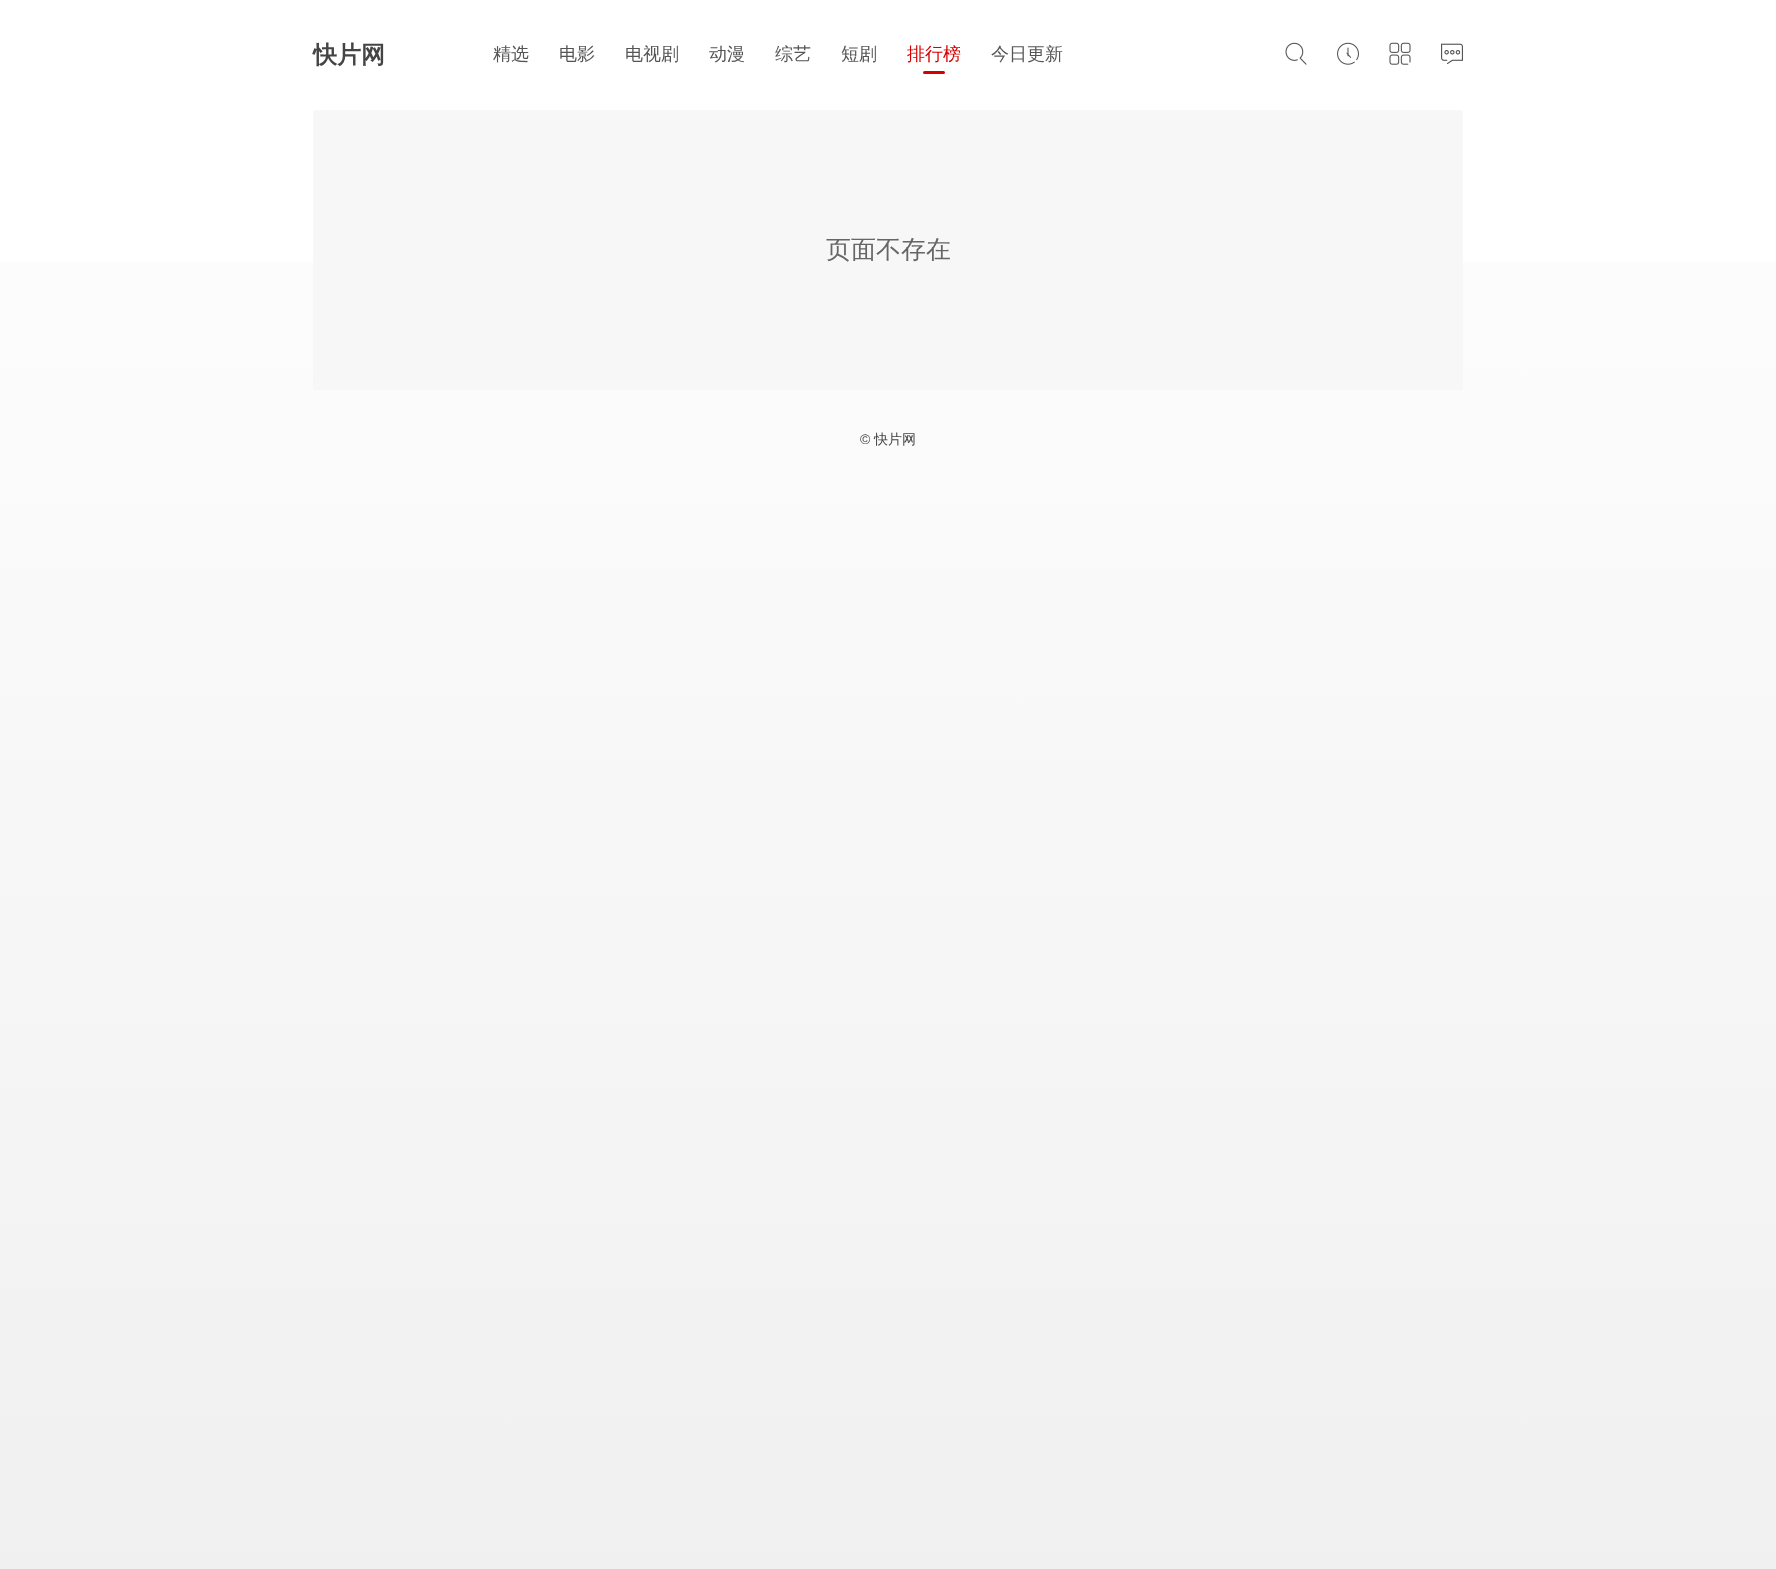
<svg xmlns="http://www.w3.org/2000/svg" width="1776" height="1569">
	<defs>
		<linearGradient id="g1" gradientUnits="userSpaceOnUse" x1="888" y1="0" x2="888" y2="1569"><stop offset="0" stop-color="#FFFFFF" /><stop offset="1" stop-color="#F0F0F0" /></linearGradient>
	</defs>
	<rect width="100%" height="100%" fill="#FFFFFF" />
	<text x="313" y="63" font-family="WenQuanYi Zen Hei" font-size="24" font-weight="700" fill="#444444">快片网</text>
	<g font-family="WenQuanYi Zen Hei" font-size="18" font-weight="500" fill="#555555">
		<text x="493" y="60">精选</text>
		<text x="559" y="60">电影</text>
		<text x="625" y="60">电视剧</text>
		<text x="709" y="60">动漫</text>
		<text x="775" y="60">综艺</text>
		<text x="841" y="60">短剧</text>
	</g>
	<text x="907" y="60" font-family="WenQuanYi Zen Hei" font-size="18" font-weight="500" fill="#D60000">排行榜</text>
	<rect x="923" y="71" width="22" height="3" rx="1.5" fill="#D60000" />
	<text x="991" y="60" font-family="WenQuanYi Zen Hei" font-size="18" font-weight="500" fill="#555555">今日更新</text>
	<image x="1285" y="42" width="22" height="23" href="assets/img1.png" />
	<image x="1337" y="42" width="22" height="23" href="assets/img2.png" />
	<image x="1389" y="42" width="22" height="23" href="assets/img3.png" />
	<image x="1441" y="43" width="22" height="21" href="assets/img4.png" />
	<rect x="0" y="262" width="1776" height="1307" fill="url(#g1)" />
	<rect x="313" y="110" width="1150" height="280" rx="2" fill="#F7F7F7" />
	<text x="826" y="258" font-family="WenQuanYi Zen Hei" font-size="25" font-weight="500" fill="#666666">页面不存在</text>
	<text x="860" y="444" font-family="Liberation Sans" font-size="14" fill="#444444">©</text>
	<text x="874" y="444" font-family="WenQuanYi Zen Hei" font-size="14" font-weight="500" fill="#444444">快片网</text>
</svg>
